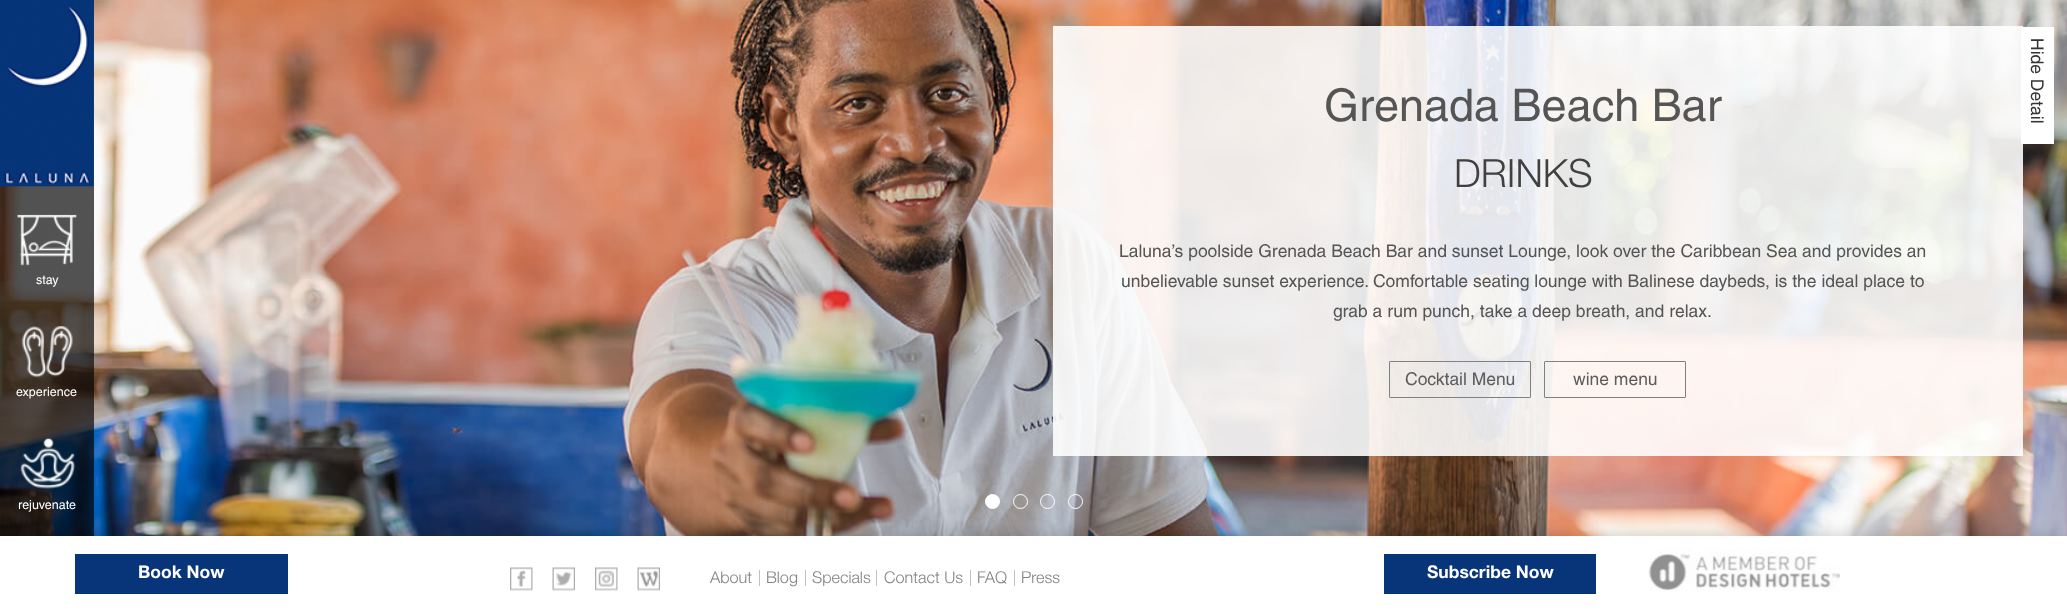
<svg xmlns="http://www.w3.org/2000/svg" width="2067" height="613">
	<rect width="100%" height="100%" fill="#FFFFFF" />
	<image x="0" y="0" width="2067" height="536" href="assets/img5.png" />
	<circle cx="992.5" cy="501.5" r="7" fill="#FFFFFF" stroke="#FFFFFF" />
	<circle cx="1020.5" cy="501.5" r="7" fill="none" stroke="#FFFFFF" />
	<circle cx="1047.5" cy="501.5" r="7" fill="none" stroke="#FFFFFF" />
	<circle cx="1075.5" cy="501.5" r="7" fill="none" stroke="#FFFFFF" />
	<rect x="1" y="538" width="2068" height="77" fill="#000000" fill-opacity="0.23" filter="blur(9.5px)" />
	<rect x="0" y="0" width="94" height="536" fill="#020202" fill-opacity="0.68" />
	<image x="0" y="0" width="94" height="187" href="assets/img1.png" />
	<image x="17" y="214" width="60" height="52" href="assets/img2.png" />
	<text x="36" y="284" font-family="Helvetica" font-size="12.5" font-weight="500" fill="#FFFFFF">stay</text>
	<image x="21" y="326" width="52" height="52" href="assets/img3.png" />
	<text x="16" y="396" font-family="Helvetica" font-size="12.5" font-weight="500" fill="#FFFFFF">experience</text>
	<image x="20" y="438" width="56" height="51" href="assets/img4.png" />
	<text x="18" y="509" font-family="Helvetica" font-size="12.5" font-weight="500" fill="#FFFFFF">rejuvenate</text>
	<rect x="1053" y="26" width="970" height="430" fill="#FFFFFF" fill-opacity="0.89" />
	<text x="1324" y="121" font-family="Helvetica" font-size="45" font-weight="500" fill="#555555">Grenada Beach Bar</text>
	<text x="1454" y="187" font-family="Helvetica Neue" font-size="39" font-weight="300" fill="#404040">DRINKS</text>
	<g font-family="Helvetica" font-size="17.5" font-weight="500" fill="#555555">
		<text x="1119" y="257">Laluna’s poolside Grenada Beach Bar and sunset Lounge, look over the Caribbean Sea and provides an</text>
		<text x="1121" y="287">unbelievable sunset experience. Comfortable seating lounge with Balinese daybeds, is the ideal place to</text>
		<text x="1333" y="317">grab a rum punch, take a deep breath, and relax.</text>
	</g>
	<rect x="1389.5" y="361.5" width="141" height="36" rx="0.5" fill="none" stroke="#808080" />
	<text x="1405" y="385" font-family="Helvetica" font-size="17.5" font-weight="500" fill="#5D5D5D">Cocktail Menu</text>
	<rect x="1544.5" y="361.5" width="141" height="36" rx="0.5" fill="none" stroke="#808080" />
	<text x="1573" y="385" font-family="Helvetica" font-size="17.5" font-weight="500" fill="#5D5D5D">wine menu</text>
	<rect x="2021" y="27" width="33" height="117" fill="#FFFFFF" />
	<text x="2031" y="38" transform="rotate(90 2031 38)" font-family="Helvetica" font-size="17.5" font-weight="500" fill="#333333">Hide Detail</text>
	<rect x="0" y="536" width="2067" height="77" fill="#FFFFFF" />
	<rect x="75" y="554" width="213" height="40" fill="#083479" />
	<text x="138" y="578" font-family="Helvetica Neue" font-size="17.5" font-weight="700" fill="#FFFFFF">Book Now</text>
	<image x="510" y="567" width="23" height="24" href="assets/img6.png" />
	<image x="552" y="567" width="23" height="24" href="assets/img7.png" />
	<image x="595" y="567" width="23" height="24" href="assets/img8.png" />
	<image x="637" y="567" width="23" height="24" href="assets/img9.png" />
	<text x="710" y="583" font-family="Helvetica Neue" font-size="16.25" font-weight="300" fill="#848282">About</text>
	<rect x="759" y="570" width="1" height="16" fill="#C1C1C1" />
	<text x="766" y="583" font-family="Helvetica Neue" font-size="16.25" font-weight="300" fill="#848282">Blog</text>
	<rect x="805" y="570" width="1" height="16" fill="#C1C1C1" />
	<text x="812" y="583" font-family="Helvetica Neue" font-size="16.25" font-weight="300" fill="#848282">Specials</text>
	<rect x="876" y="570" width="1" height="16" fill="#C1C1C1" />
	<text x="884" y="583" font-family="Helvetica Neue" font-size="16.25" font-weight="300" fill="#848282">Contact Us</text>
	<rect x="970" y="570" width="1" height="16" fill="#C1C1C1" />
	<text x="977" y="583" font-family="Helvetica Neue" font-size="16.25" font-weight="300" fill="#848282">FAQ</text>
	<rect x="1014" y="570" width="1" height="16" fill="#C1C1C1" />
	<text x="1021" y="583" font-family="Helvetica Neue" font-size="16.25" font-weight="300" fill="#848282">Press</text>
	<rect x="1384" y="554" width="212" height="40" fill="#083479" />
	<text x="1427" y="578" font-family="Helvetica Neue" font-size="17.5" font-weight="700" fill="#FFFFFF">Subscribe Now</text>
	<image x="1648" y="549" width="192" height="42" href="assets/img10.png" />
</svg>
